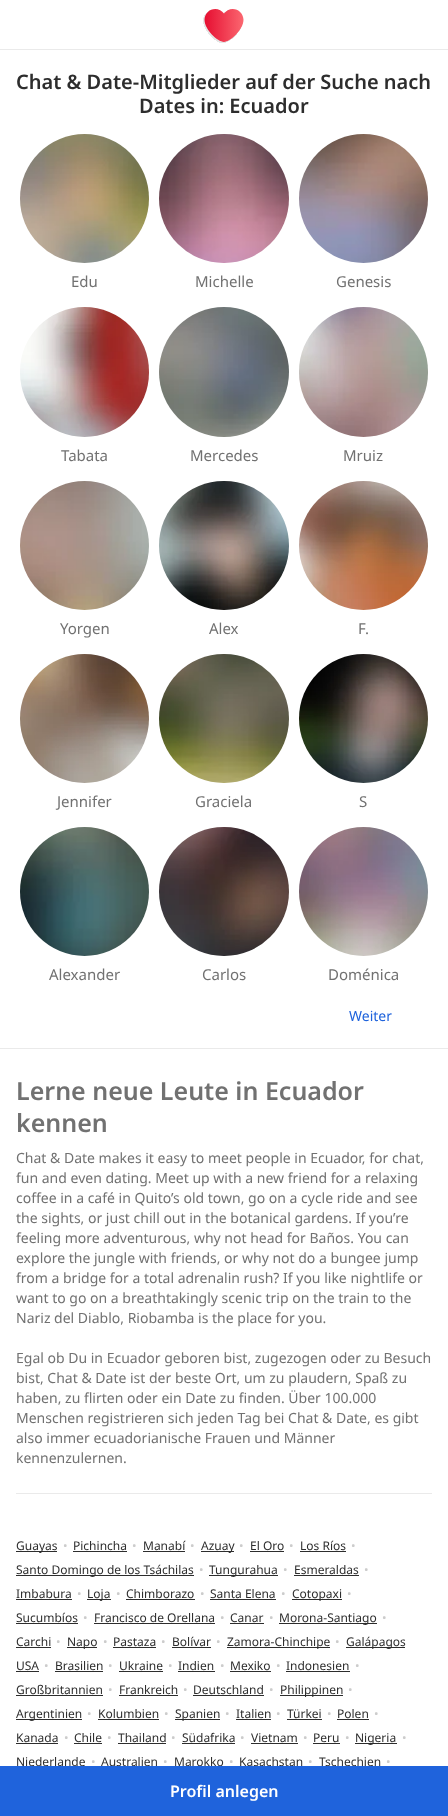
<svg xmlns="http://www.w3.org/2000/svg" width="448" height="1816">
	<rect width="100%" height="100%" fill="#FFFFFF" />
	<rect x="0" y="49" width="448" height="1" fill="#EAEAEA" />
	<image x="203" y="9" width="41" height="34" href="assets/img1.png" />
	<g font-family="Noto Sans" font-size="20" font-weight="600" fill="#2D2D2D">
		<text x="16" y="89">Chat &amp; Date-Mitglieder auf der Suche nach</text>
		<text x="139" y="113">Dates in: Ecuador</text>
	</g>
	<image x="20" y="134" width="129" height="129" href="assets/img2.png" />
	<text x="71" y="287" font-family="Noto Sans" font-size="15" fill="#717171">Edu</text>
	<image x="159" y="134" width="130" height="129" href="assets/img3.png" />
	<text x="195" y="287" font-family="Noto Sans" font-size="15" fill="#717171">Michelle</text>
	<image x="299" y="134" width="129" height="129" href="assets/img4.png" />
	<text x="336" y="287" font-family="Noto Sans" font-size="15" fill="#717171">Genesis</text>
	<image x="20" y="307" width="129" height="130" href="assets/img5.png" />
	<text x="61" y="461" font-family="Noto Sans" font-size="15" fill="#717171">Tabata</text>
	<image x="159" y="307" width="130" height="130" href="assets/img6.png" />
	<text x="190" y="461" font-family="Noto Sans" font-size="15" fill="#717171">Mercedes</text>
	<image x="299" y="307" width="129" height="130" href="assets/img7.png" />
	<text x="343" y="461" font-family="Noto Sans" font-size="15" fill="#717171">Mruiz</text>
	<image x="20" y="481" width="129" height="129" href="assets/img8.png" />
	<text x="60" y="634" font-family="Noto Sans" font-size="15" fill="#717171">Yorgen</text>
	<image x="159" y="481" width="130" height="129" href="assets/img9.png" />
	<text x="209" y="634" font-family="Noto Sans" font-size="15" fill="#717171">Alex</text>
	<image x="299" y="481" width="129" height="129" href="assets/img10.png" />
	<text x="358" y="634" font-family="Noto Sans" font-size="15" fill="#717171">F.</text>
	<image x="20" y="654" width="129" height="129" href="assets/img11.png" />
	<text x="57" y="807" font-family="Noto Sans" font-size="15" fill="#717171">Jennifer</text>
	<image x="159" y="654" width="130" height="129" href="assets/img12.png" />
	<text x="195" y="807" font-family="Noto Sans" font-size="15" fill="#717171">Graciela</text>
	<image x="299" y="654" width="129" height="129" href="assets/img13.png" />
	<text x="359" y="807" font-family="Noto Sans" font-size="15" fill="#717171">S</text>
	<image x="20" y="827" width="129" height="129" href="assets/img14.png" />
	<text x="49" y="980" font-family="Noto Sans" font-size="15" fill="#717171">Alexander</text>
	<image x="159" y="827" width="130" height="129" href="assets/img15.png" />
	<text x="202" y="980" font-family="Noto Sans" font-size="15" fill="#717171">Carlos</text>
	<image x="299" y="827" width="129" height="129" href="assets/img16.png" />
	<text x="328" y="980" font-family="Noto Sans" font-size="15" fill="#717171">Doménica</text>
	<text x="349" y="1021" font-family="Noto Sans" font-size="14" fill="#1F63DC">Weiter</text>
	<rect x="0" y="1048" width="448" height="1" fill="#EAEAEA" />
	<rect x="16" y="1493" width="416" height="1" fill="#EAEAEA" />
	<g font-family="Noto Sans" font-size="25" font-weight="600" fill="#717171">
		<text x="16" y="1100">Lerne neue Leute in Ecuador</text>
		<text x="16" y="1132">kennen</text>
	</g>
	<g font-family="Noto Sans" font-size="14" fill="#717171">
		<text x="16" y="1163">Chat &amp; Date makes it easy to meet people in Ecuador, for chat,</text>
		<text x="16" y="1183">fun and even dating. Meet up with a new friend for a relaxing</text>
		<text x="16" y="1203">coffee in a café in Quito’s old town, go on a cycle ride and see</text>
		<text x="16" y="1223">the sights, or just chill out in the botanical gardens. If you’re</text>
		<text x="16" y="1243">feeling more adventurous, why not head for Baños. You can</text>
		<text x="16" y="1263">explore the jungle with friends, or why not do a bungee jump</text>
		<text x="16" y="1283">from a bridge for a total adrenalin rush? If you like nightlife or</text>
		<text x="16" y="1303">want to go on a breathtakingly scenic trip on the train to the</text>
		<text x="16" y="1323">Nariz del Diablo, Riobamba is the place for you.</text>
		<text x="16" y="1363">Egal ob Du in Ecuador geboren bist, zugezogen oder zu Besuch</text>
		<text x="16" y="1383">bist, Chat &amp; Date ist der beste Ort, um zu plaudern, Spaß zu</text>
		<text x="16" y="1403">haben, zu flirten oder ein Date zu finden. Über 100.000</text>
		<text x="16" y="1423">Menschen registrieren sich jeden Tag bei Chat &amp; Date, es gibt</text>
		<text x="16" y="1443">also immer ecuadorianische Frauen und Männer</text>
		<text x="16" y="1463">kennenzulernen.</text>
	</g>
	<rect x="16" y="1551" width="41" height="1" fill="#2D2D2D" />
	<text x="16" y="1550" font-family="Noto Sans" font-size="12" fill="#2D2D2D">Guayas</text>
	<text x="63" y="1550" font-family="Noto Sans" font-size="12" fill="#CCCCCC">•</text>
	<text x="73" y="1550" font-family="Noto Sans" font-size="12" fill="#2D2D2D">Pichincha</text>
	<rect x="73" y="1551" width="54" height="1" fill="#2D2D2D" />
	<text x="132" y="1550" font-family="Noto Sans" font-size="12" fill="#CCCCCC">•</text>
	<text x="143" y="1550" font-family="Noto Sans" font-size="12" fill="#2D2D2D">Manabí</text>
	<rect x="143" y="1551" width="42" height="1" fill="#2D2D2D" />
	<text x="190" y="1550" font-family="Noto Sans" font-size="12" fill="#CCCCCC">•</text>
	<rect x="201" y="1551" width="33" height="1" fill="#2D2D2D" />
	<text x="201" y="1550" font-family="Noto Sans" font-size="12" fill="#2D2D2D">Azuay</text>
	<text x="239" y="1550" font-family="Noto Sans" font-size="12" fill="#CCCCCC">•</text>
	<text x="250" y="1550" font-family="Noto Sans" font-size="12" fill="#2D2D2D">El Oro</text>
	<rect x="250" y="1551" width="34" height="1" fill="#2D2D2D" />
	<text x="289" y="1550" font-family="Noto Sans" font-size="12" fill="#CCCCCC">•</text>
	<text x="300" y="1550" font-family="Noto Sans" font-size="12" fill="#2D2D2D">Los Ríos</text>
	<rect x="300" y="1551" width="46" height="1" fill="#2D2D2D" />
	<text x="351" y="1550" font-family="Noto Sans" font-size="12" fill="#CCCCCC">•</text>
	<rect x="16" y="1575" width="178" height="1" fill="#2D2D2D" />
	<text x="16" y="1574" font-family="Noto Sans" font-size="12" fill="#2D2D2D">Santo Domingo de los Tsáchilas</text>
	<text x="199" y="1574" font-family="Noto Sans" font-size="12" fill="#CCCCCC">•</text>
	<rect x="209" y="1575" width="69" height="1" fill="#2D2D2D" />
	<text x="209" y="1574" font-family="Noto Sans" font-size="12" fill="#2D2D2D">Tungurahua</text>
	<text x="283" y="1574" font-family="Noto Sans" font-size="12" fill="#CCCCCC">•</text>
	<text x="294" y="1574" font-family="Noto Sans" font-size="12" fill="#2D2D2D">Esmeraldas</text>
	<rect x="294" y="1575" width="65" height="1" fill="#2D2D2D" />
	<text x="364" y="1574" font-family="Noto Sans" font-size="12" fill="#CCCCCC">•</text>
	<text x="16" y="1598" font-family="Noto Sans" font-size="12" fill="#2D2D2D">Imbabura</text>
	<rect x="16" y="1599" width="56" height="1" fill="#2D2D2D" />
	<text x="77" y="1598" font-family="Noto Sans" font-size="12" fill="#CCCCCC">•</text>
	<rect x="87" y="1599" width="24" height="1" fill="#2D2D2D" />
	<text x="87" y="1598" font-family="Noto Sans" font-size="12" fill="#2D2D2D">Loja</text>
	<text x="116" y="1598" font-family="Noto Sans" font-size="12" fill="#CCCCCC">•</text>
	<text x="126" y="1598" font-family="Noto Sans" font-size="12" fill="#2D2D2D">Chimborazo</text>
	<rect x="126" y="1599" width="69" height="1" fill="#2D2D2D" />
	<text x="200" y="1598" font-family="Noto Sans" font-size="12" fill="#CCCCCC">•</text>
	<text x="210" y="1598" font-family="Noto Sans" font-size="12" fill="#2D2D2D">Santa Elena</text>
	<rect x="210" y="1599" width="66" height="1" fill="#2D2D2D" />
	<text x="281" y="1598" font-family="Noto Sans" font-size="12" fill="#CCCCCC">•</text>
	<rect x="292" y="1599" width="50" height="1" fill="#2D2D2D" />
	<text x="292" y="1598" font-family="Noto Sans" font-size="12" fill="#2D2D2D">Cotopaxi</text>
	<text x="347" y="1598" font-family="Noto Sans" font-size="12" fill="#CCCCCC">•</text>
	<text x="16" y="1622" font-family="Noto Sans" font-size="12" fill="#2D2D2D">Sucumbíos</text>
	<rect x="16" y="1623" width="62" height="1" fill="#2D2D2D" />
	<text x="83" y="1622" font-family="Noto Sans" font-size="12" fill="#CCCCCC">•</text>
	<text x="94" y="1622" font-family="Noto Sans" font-size="12" fill="#2D2D2D">Francisco de Orellana</text>
	<rect x="94" y="1623" width="121" height="1" fill="#2D2D2D" />
	<text x="220" y="1622" font-family="Noto Sans" font-size="12" fill="#CCCCCC">•</text>
	<text x="230" y="1622" font-family="Noto Sans" font-size="12" fill="#2D2D2D">Canar</text>
	<rect x="230" y="1623" width="34" height="1" fill="#2D2D2D" />
	<text x="269" y="1622" font-family="Noto Sans" font-size="12" fill="#CCCCCC">•</text>
	<rect x="279" y="1623" width="98" height="1" fill="#2D2D2D" />
	<text x="279" y="1622" font-family="Noto Sans" font-size="12" fill="#2D2D2D">Morona-Santiago</text>
	<text x="382" y="1622" font-family="Noto Sans" font-size="12" fill="#CCCCCC">•</text>
	<text x="16" y="1646" font-family="Noto Sans" font-size="12" fill="#2D2D2D">Carchi</text>
	<rect x="16" y="1647" width="35" height="1" fill="#2D2D2D" />
	<text x="56" y="1646" font-family="Noto Sans" font-size="12" fill="#CCCCCC">•</text>
	<rect x="67" y="1647" width="30" height="1" fill="#2D2D2D" />
	<text x="67" y="1646" font-family="Noto Sans" font-size="12" fill="#2D2D2D">Napo</text>
	<text x="103" y="1646" font-family="Noto Sans" font-size="12" fill="#CCCCCC">•</text>
	<text x="113" y="1646" font-family="Noto Sans" font-size="12" fill="#2D2D2D">Pastaza</text>
	<rect x="113" y="1647" width="43" height="1" fill="#2D2D2D" />
	<text x="161" y="1646" font-family="Noto Sans" font-size="12" fill="#CCCCCC">•</text>
	<text x="172" y="1646" font-family="Noto Sans" font-size="12" fill="#2D2D2D">Bolívar</text>
	<rect x="172" y="1647" width="39" height="1" fill="#2D2D2D" />
	<text x="216" y="1646" font-family="Noto Sans" font-size="12" fill="#CCCCCC">•</text>
	<rect x="227" y="1647" width="103" height="1" fill="#2D2D2D" />
	<text x="227" y="1646" font-family="Noto Sans" font-size="12" fill="#2D2D2D">Zamora-Chinchipe</text>
	<text x="335" y="1646" font-family="Noto Sans" font-size="12" fill="#CCCCCC">•</text>
	<rect x="346" y="1647" width="59" height="1" fill="#2D2D2D" />
	<g font-family="Noto Sans" font-size="12" fill="#2D2D2D">
		<text x="346" y="1646">Galápagos</text>
		<text x="16" y="1670">USA</text>
	</g>
	<rect x="16" y="1671" width="23" height="1" fill="#2D2D2D" />
	<text x="44" y="1670" font-family="Noto Sans" font-size="12" fill="#CCCCCC">•</text>
	<text x="55" y="1670" font-family="Noto Sans" font-size="12" fill="#2D2D2D">Brasilien</text>
	<rect x="55" y="1671" width="48" height="1" fill="#2D2D2D" />
	<text x="108" y="1670" font-family="Noto Sans" font-size="12" fill="#CCCCCC">•</text>
	<text x="119" y="1670" font-family="Noto Sans" font-size="12" fill="#2D2D2D">Ukraine</text>
	<rect x="119" y="1671" width="44" height="1" fill="#2D2D2D" />
	<text x="168" y="1670" font-family="Noto Sans" font-size="12" fill="#CCCCCC">•</text>
	<text x="178" y="1670" font-family="Noto Sans" font-size="12" fill="#2D2D2D">Indien</text>
	<rect x="178" y="1671" width="37" height="1" fill="#2D2D2D" />
	<text x="220" y="1670" font-family="Noto Sans" font-size="12" fill="#CCCCCC">•</text>
	<text x="230" y="1670" font-family="Noto Sans" font-size="12" fill="#2D2D2D">Mexiko</text>
	<rect x="230" y="1671" width="41" height="1" fill="#2D2D2D" />
	<text x="276" y="1670" font-family="Noto Sans" font-size="12" fill="#CCCCCC">•</text>
	<text x="286" y="1670" font-family="Noto Sans" font-size="12" fill="#2D2D2D">Indonesien</text>
	<rect x="286" y="1671" width="64" height="1" fill="#2D2D2D" />
	<text x="355" y="1670" font-family="Noto Sans" font-size="12" fill="#CCCCCC">•</text>
	<text x="16" y="1694" font-family="Noto Sans" font-size="12" fill="#2D2D2D">Großbritannien</text>
	<rect x="16" y="1695" width="87" height="1" fill="#2D2D2D" />
	<text x="108" y="1694" font-family="Noto Sans" font-size="12" fill="#CCCCCC">•</text>
	<text x="119" y="1694" font-family="Noto Sans" font-size="12" fill="#2D2D2D">Frankreich</text>
	<rect x="119" y="1695" width="59" height="1" fill="#2D2D2D" />
	<text x="183" y="1694" font-family="Noto Sans" font-size="12" fill="#CCCCCC">•</text>
	<text x="193" y="1694" font-family="Noto Sans" font-size="12" fill="#2D2D2D">Deutschland</text>
	<rect x="193" y="1695" width="71" height="1" fill="#2D2D2D" />
	<text x="269" y="1694" font-family="Noto Sans" font-size="12" fill="#CCCCCC">•</text>
	<rect x="280" y="1695" width="63" height="1" fill="#2D2D2D" />
	<text x="280" y="1694" font-family="Noto Sans" font-size="12" fill="#2D2D2D">Philippinen</text>
	<text x="348" y="1694" font-family="Noto Sans" font-size="12" fill="#CCCCCC">•</text>
	<rect x="16" y="1719" width="66" height="1" fill="#2D2D2D" />
	<text x="16" y="1718" font-family="Noto Sans" font-size="12" fill="#2D2D2D">Argentinien</text>
	<text x="87" y="1718" font-family="Noto Sans" font-size="12" fill="#CCCCCC">•</text>
	<text x="98" y="1718" font-family="Noto Sans" font-size="12" fill="#2D2D2D">Kolumbien</text>
	<rect x="98" y="1719" width="61" height="1" fill="#2D2D2D" />
	<text x="164" y="1718" font-family="Noto Sans" font-size="12" fill="#CCCCCC">•</text>
	<rect x="175" y="1719" width="45" height="1" fill="#2D2D2D" />
	<text x="175" y="1718" font-family="Noto Sans" font-size="12" fill="#2D2D2D">Spanien</text>
	<text x="225" y="1718" font-family="Noto Sans" font-size="12" fill="#CCCCCC">•</text>
	<text x="236" y="1718" font-family="Noto Sans" font-size="12" fill="#2D2D2D">Italien</text>
	<rect x="236" y="1719" width="35" height="1" fill="#2D2D2D" />
	<text x="276" y="1718" font-family="Noto Sans" font-size="12" fill="#CCCCCC">•</text>
	<text x="287" y="1718" font-family="Noto Sans" font-size="12" fill="#2D2D2D">Türkei</text>
	<rect x="287" y="1719" width="35" height="1" fill="#2D2D2D" />
	<text x="327" y="1718" font-family="Noto Sans" font-size="12" fill="#CCCCCC">•</text>
	<text x="337" y="1718" font-family="Noto Sans" font-size="12" fill="#2D2D2D">Polen</text>
	<rect x="337" y="1719" width="32" height="1" fill="#2D2D2D" />
	<text x="374" y="1718" font-family="Noto Sans" font-size="12" fill="#CCCCCC">•</text>
	<text x="16" y="1742" font-family="Noto Sans" font-size="12" fill="#2D2D2D">Kanada</text>
	<rect x="16" y="1743" width="42" height="1" fill="#2D2D2D" />
	<text x="64" y="1742" font-family="Noto Sans" font-size="12" fill="#CCCCCC">•</text>
	<text x="74" y="1742" font-family="Noto Sans" font-size="12" fill="#2D2D2D">Chile</text>
	<rect x="74" y="1743" width="28" height="1" fill="#2D2D2D" />
	<text x="107" y="1742" font-family="Noto Sans" font-size="12" fill="#CCCCCC">•</text>
	<text x="118" y="1742" font-family="Noto Sans" font-size="12" fill="#2D2D2D">Thailand</text>
	<rect x="118" y="1743" width="48" height="1" fill="#2D2D2D" />
	<text x="171" y="1742" font-family="Noto Sans" font-size="12" fill="#CCCCCC">•</text>
	<text x="182" y="1742" font-family="Noto Sans" font-size="12" fill="#2D2D2D">Südafrika</text>
	<rect x="182" y="1743" width="53" height="1" fill="#2D2D2D" />
	<text x="240" y="1742" font-family="Noto Sans" font-size="12" fill="#CCCCCC">•</text>
	<text x="251" y="1742" font-family="Noto Sans" font-size="12" fill="#2D2D2D">Vietnam</text>
	<rect x="251" y="1743" width="47" height="1" fill="#2D2D2D" />
	<text x="303" y="1742" font-family="Noto Sans" font-size="12" fill="#CCCCCC">•</text>
	<text x="313" y="1742" font-family="Noto Sans" font-size="12" fill="#2D2D2D">Peru</text>
	<rect x="313" y="1743" width="27" height="1" fill="#2D2D2D" />
	<text x="345" y="1742" font-family="Noto Sans" font-size="12" fill="#CCCCCC">•</text>
	<rect x="355" y="1743" width="42" height="1" fill="#2D2D2D" />
	<text x="355" y="1742" font-family="Noto Sans" font-size="12" fill="#2D2D2D">Nigeria</text>
	<text x="402" y="1742" font-family="Noto Sans" font-size="12" fill="#CCCCCC">•</text>
	<text x="16" y="1766" font-family="Noto Sans" font-size="12" fill="#2D2D2D">Niederlande</text>
	<text x="91" y="1766" font-family="Noto Sans" font-size="12" fill="#CCCCCC">•</text>
	<text x="101" y="1766" font-family="Noto Sans" font-size="12" fill="#2D2D2D">Australien</text>
	<text x="163" y="1766" font-family="Noto Sans" font-size="12" fill="#CCCCCC">•</text>
	<text x="174" y="1766" font-family="Noto Sans" font-size="12" fill="#2D2D2D">Marokko</text>
	<text x="229" y="1766" font-family="Noto Sans" font-size="12" fill="#CCCCCC">•</text>
	<text x="239" y="1766" font-family="Noto Sans" font-size="12" fill="#2D2D2D">Kasachstan</text>
	<text x="308" y="1766" font-family="Noto Sans" font-size="12" fill="#CCCCCC">•</text>
	<text x="319" y="1766" font-family="Noto Sans" font-size="12" fill="#2D2D2D">Tschechien</text>
	<text x="386" y="1766" font-family="Noto Sans" font-size="12" fill="#CCCCCC">•</text>
	<rect x="0" y="1766" width="448" height="50" fill="#1F63DC" />
	<text x="170" y="1797" font-family="Noto Sans" font-size="16" font-weight="600" fill="#FFFFFF">Profil anlegen</text>
</svg>
